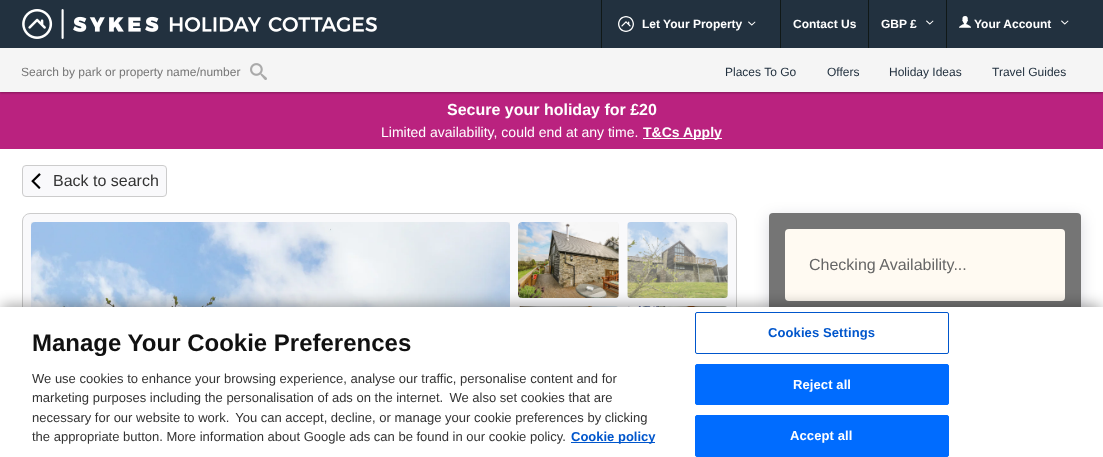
<svg xmlns="http://www.w3.org/2000/svg" width="1103" height="457">
	<rect width="100%" height="100%" fill="#FFFFFF" />
	<rect x="0" y="92" width="1103" height="57" fill="#BA227F" />
	<rect x="0" y="1" width="1103" height="92" fill="#000000" fill-opacity="0.3" filter="blur(1px)" />
	<rect x="0" y="0" width="1103" height="48" fill="#22313F" />
	<image x="22" y="9" width="355" height="30" href="assets/img1.png" />
	<rect x="601" y="0" width="1" height="48" fill="#101817" />
	<image x="618" y="16" width="16" height="16" href="assets/img2.png" />
	<text x="642" y="28" font-family="Liberation Sans" font-size="12" font-weight="700" fill="#FFFFFF">Let Your Property</text>
	<image x="748" y="21" width="8" height="5" href="assets/img3.png" />
	<rect x="780" y="0" width="1" height="48" fill="#101817" />
	<text x="793" y="28" font-family="Liberation Sans" font-size="12" font-weight="700" fill="#FFFFFF">Contact Us</text>
	<rect x="868" y="0" width="1" height="48" fill="#101817" />
	<text x="881" y="28" font-family="Liberation Sans" font-size="12" font-weight="700" fill="#FFFFFF">GBP £</text>
	<image x="926" y="20" width="8" height="5" href="assets/img3.png" />
	<rect x="946" y="0" width="1" height="48" fill="#101817" />
	<image x="959" y="16" width="12" height="12" href="assets/img4.png" />
	<text x="974" y="28" font-family="Liberation Sans" font-size="12" font-weight="700" fill="#FFFFFF">Your Account</text>
	<image x="1061" y="20" width="8" height="5" href="assets/img3.png" />
	<rect x="0" y="48" width="1103" height="44" fill="#F5F5F5" />
	<text x="21" y="76" font-family="Liberation Sans" font-size="12" fill="#757575">Search by park or property name/number</text>
	<image x="250" y="63" width="17" height="17" href="assets/img5.png" />
	<g font-family="Liberation Sans" font-size="12" fill="#22313F">
		<text x="725" y="76">Places To Go</text>
		<text x="827" y="76">Offers</text>
		<text x="889" y="76">Holiday Ideas</text>
		<text x="992" y="76">Travel Guides</text>
	</g>
	<text x="447" y="115" font-family="Liberation Sans" font-size="16" font-weight="700" fill="#FFFFFF">Secure your holiday for £20</text>
	<text x="381" y="137" font-family="Liberation Sans" font-size="14" fill="#FFFFFF">Limited availability, could end at any time.</text>
	<rect x="643" y="138" width="79" height="1" fill="#FFFFFF" />
	<text x="643" y="137" font-family="Liberation Sans" font-size="14" font-weight="700" fill="#FFFFFF">T&amp;Cs Apply</text>
	<rect x="22.5" y="165.5" width="144" height="31" rx="3.5" fill="#F9F9FB" stroke="#CCCCCC" />
	<image x="31" y="173" width="10" height="16" href="assets/img6.png" />
	<text x="53" y="186" font-family="Liberation Sans" font-size="16" fill="#333333">Back to search</text>
	<rect x="22.5" y="213.5" width="714" height="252" rx="7.5" fill="#F9F9FB" stroke="#CCCCCC" />
	<rect x="31" y="222" width="479" height="4" fill="#F1F1F1" />
	<image x="31" y="222" width="479" height="85" href="assets/img7.png" />
	<rect x="518" y="222" width="101" height="76" rx="4" fill="#F1F1F1" />
	<image x="518" y="222" width="101" height="76" href="assets/img8.png" />
	<rect x="627" y="222" width="101" height="76" rx="4" fill="#F1F1F1" />
	<image x="627" y="222" width="101" height="76" href="assets/img9.png" />
	<image x="519" y="306" width="99" height="1" href="assets/img10.png" />
	<image x="628" y="306" width="99" height="1" href="assets/img11.png" />
	<rect x="769" y="217" width="312" height="104" rx="4" fill="#000028" fill-opacity="0.15" filter="blur(7.5px)" />
	<rect x="769" y="213" width="312" height="104" rx="4" fill="#757575" />
	<rect x="785" y="229" width="280" height="72" rx="4" fill="#FFFAF2" />
	<text x="809" y="270" font-family="Liberation Sans" font-size="16" fill="#666666">Checking Availability...</text>
	<rect x="2" y="305" width="1099" height="146" fill="#000000" fill-opacity="0.35" filter="blur(7px)" />
	<rect x="0" y="307" width="1103" height="150" fill="#FFFFFF" />
	<text x="32" y="351" font-family="Liberation Sans" font-size="24" font-weight="700" fill="#111111">Manage Your Cookie Preferences</text>
	<g font-family="Liberation Sans" font-size="13" fill="#333333">
		<text x="32" y="383">We use cookies to enhance your browsing experience, analyse our traffic, personalise content and for</text>
		<text x="32" y="402">marketing purposes including the personalisation of ads on the internet.  We also set cookies that are</text>
		<text x="32" y="422">necessary for our website to work.  You can accept, decline, or manage your cookie preferences by clicking</text>
		<text x="32" y="441">the appropriate button. More information about Google ads can be found in our cookie policy.</text>
	</g>
	<rect x="571" y="442" width="84" height="1" fill="#0056CC" />
	<text x="571" y="441" font-family="Liberation Sans" font-size="13" font-weight="700" fill="#0056CC">Cookie policy</text>
	<rect x="695.5" y="312.5" width="253" height="41" rx="1.5" fill="none" stroke="#0056CC" />
	<text x="768" y="337" font-family="Liberation Sans" font-size="13" font-weight="700" letter-spacing="0.1" fill="#0056CC">Cookies Settings</text>
	<rect x="695.5" y="364.5" width="253" height="40" rx="1.5" fill="#006CFF" stroke="#006CFF" />
	<text x="793" y="389" font-family="Liberation Sans" font-size="13" font-weight="700" letter-spacing="0.1" fill="#FFFFFF">Reject all</text>
	<rect x="695.5" y="415.5" width="253" height="41" rx="1.5" fill="#006CFF" stroke="#006CFF" />
	<text x="790" y="440" font-family="Liberation Sans" font-size="13" font-weight="700" letter-spacing="0.1" fill="#FFFFFF">Accept all</text>
</svg>
